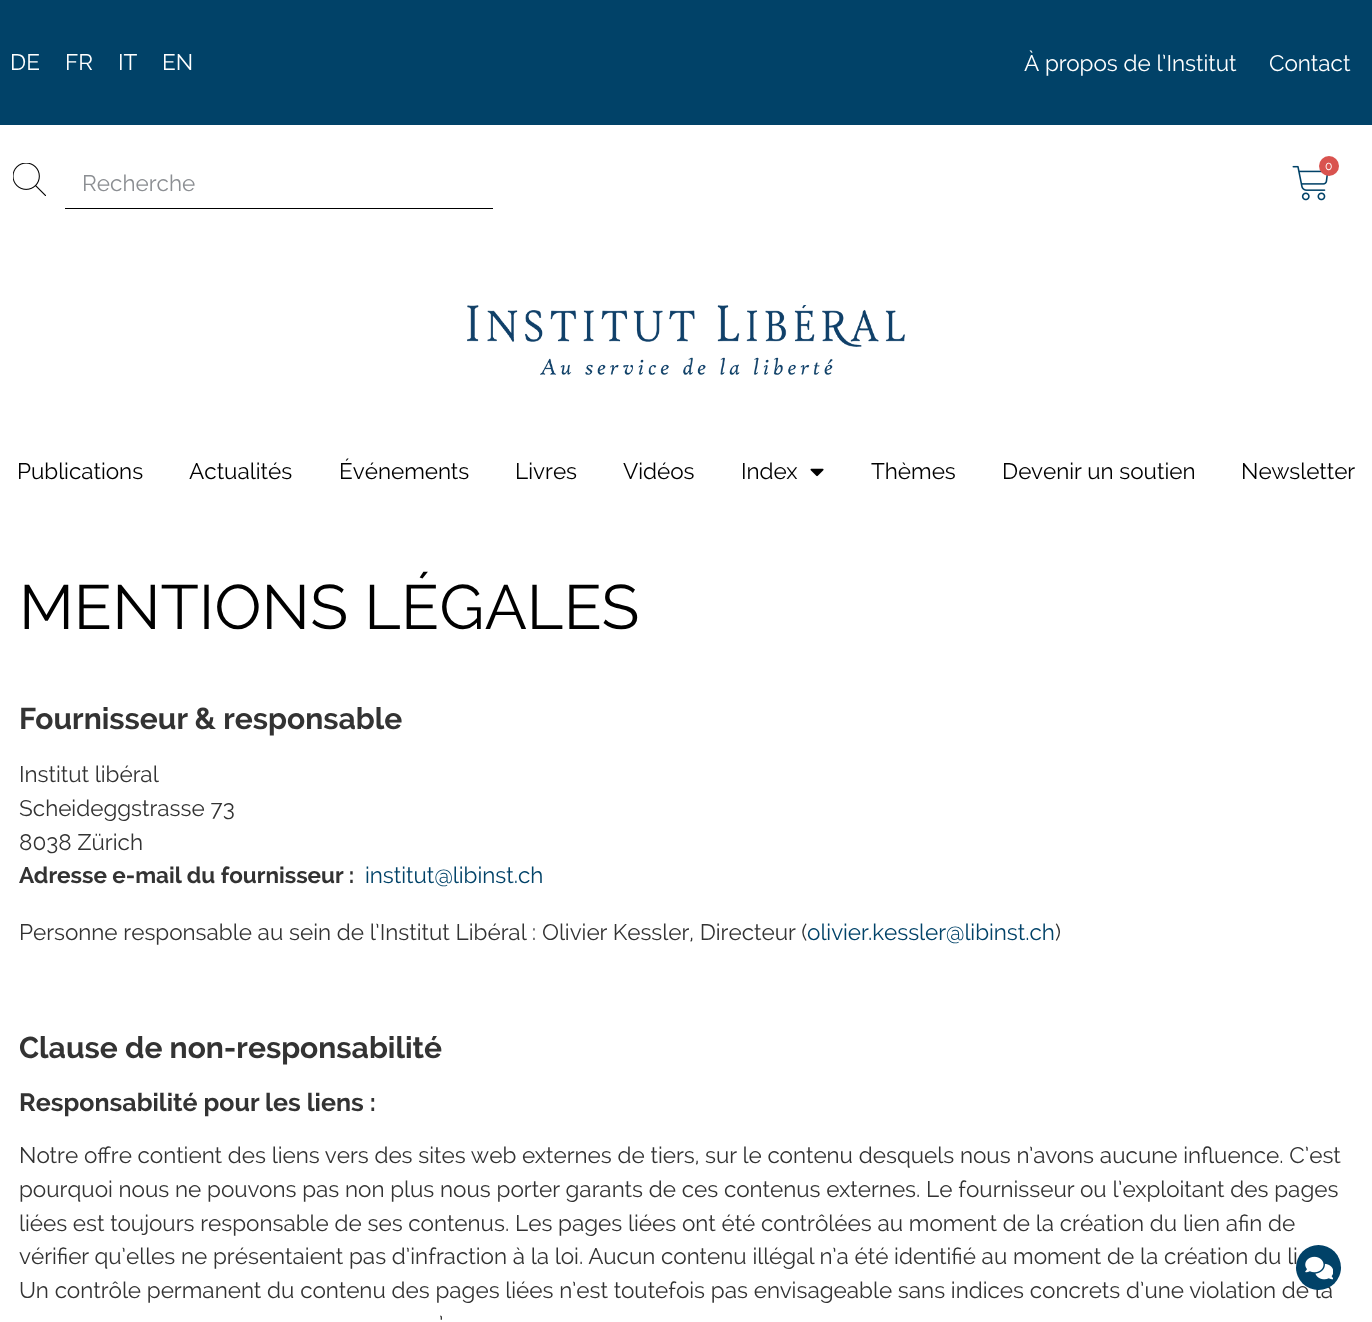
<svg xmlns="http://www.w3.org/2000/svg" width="1372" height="1322">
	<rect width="100%" height="100%" fill="#FFFFFF" />
	<rect x="0" y="0" width="1372" height="125" fill="#014268" />
	<g font-family="Raleway" font-size="22.5" fill="#FFFFFF">
		<text x="10" y="70">DE</text>
		<text x="65" y="70">FR</text>
		<text x="118" y="70">IT</text>
		<text x="162" y="70">EN</text>
		<text x="1024" y="71">À propos de l’Institut</text>
		<text x="1269" y="71">Contact</text>
	</g>
	<image x="1292" y="165" width="36" height="36" href="assets/img1.png" />
	<circle cx="1329" cy="166" r="10" fill="#D9534F" />
	<text x="1325" y="170" font-family="Raleway" font-size="12" fill="#FFFFFF">0</text>
	<image x="13" y="163" width="33" height="33" href="assets/img2.png" />
	<rect x="65" y="208" width="428" height="1" fill="#000000" />
	<text x="82" y="191" font-family="Raleway" font-size="22.5" fill="#8C8F93">Recherche</text>
	<image x="467" y="305" width="438" height="70" href="assets/img3.png" />
	<g font-family="Raleway" font-size="22.5" fill="#000000">
		<text x="17" y="479">Publications</text>
		<text x="189" y="479">Actualités</text>
		<text x="339" y="479">Événements</text>
		<text x="515" y="479">Livres</text>
		<text x="623" y="479">Vidéos</text>
		<text x="741" y="479">Index</text>
	</g>
	<image x="810" y="468" width="14" height="9" href="assets/img4.png" />
	<g font-family="Raleway" font-size="22.5" fill="#000000">
		<text x="871" y="479">Thèmes</text>
		<text x="1002" y="479">Devenir un soutien</text>
		<text x="1241" y="479">Newsletter</text>
	</g>
	<text x="19" y="629" font-family="Raleway" font-size="62.5" fill="#000000">MENTIONS LÉGALES</text>
	<text x="19" y="729" font-family="Raleway" font-size="30" font-weight="700" fill="#333333">Fournisseur &amp; responsable</text>
	<g font-family="Raleway" font-size="22.5" fill="#333333">
		<text x="19" y="782">Institut libéral</text>
		<text x="19" y="816">Scheideggstrasse 73</text>
		<text x="19" y="850">8038 Zürich</text>
	</g>
	<text x="19" y="883" font-family="Raleway" font-size="22.5" font-weight="700" fill="#333333">Adresse e-mail du fournisseur :</text>
	<text x="365" y="883" font-family="Raleway" font-size="22.5" fill="#014268">institut@libinst.ch</text>
	<text x="19" y="940" font-family="Raleway" font-size="22.5" fill="#333333">Personne responsable au sein de l’Institut Libéral : Olivier Kessler, Directeur (</text>
	<text x="807" y="940" font-family="Raleway" font-size="22.5" fill="#014268">olivier.kessler@libinst.ch</text>
	<text x="1055" y="940" font-family="Raleway" font-size="22.5" fill="#333333">)</text>
	<text x="19" y="1058" font-family="Raleway" font-size="30" font-weight="700" fill="#333333">Clause de non-responsabilité</text>
	<text x="19" y="1111" font-family="Raleway" font-size="25" font-weight="700" fill="#333333">Responsabilité pour les liens :</text>
	<g font-family="Raleway" font-size="22.5" fill="#333333">
		<text x="19" y="1163">Notre offre contient des liens vers des sites web externes de tiers, sur le contenu desquels nous n’avons aucune influence. C’est</text>
		<text x="19" y="1197">pourquoi nous ne pouvons pas non plus nous porter garants de ces contenus externes. Le fournisseur ou l’exploitant des pages</text>
		<text x="19" y="1231">liées est toujours responsable de ses contenus. Les pages liées ont été contrôlées au moment de la création du lien afin de</text>
		<text x="19" y="1264">vérifier qu’elles ne présentaient pas d’infraction à la loi. Aucun contenu illégal n’a été identifié au moment de la création du li</text>
		<text x="19" y="1298">Un contrôle permanent du contenu des pages liées n’est toutefois pas envisageable sans indices concrets d’une violation de la</text>
		<text x="439" y="1332">’</text>
	</g>
	<circle cx="1318.5" cy="1267.5" r="22.5" fill="#014268" />
	<image x="1305" y="1256" width="28" height="24" href="assets/img5.png" />
</svg>
